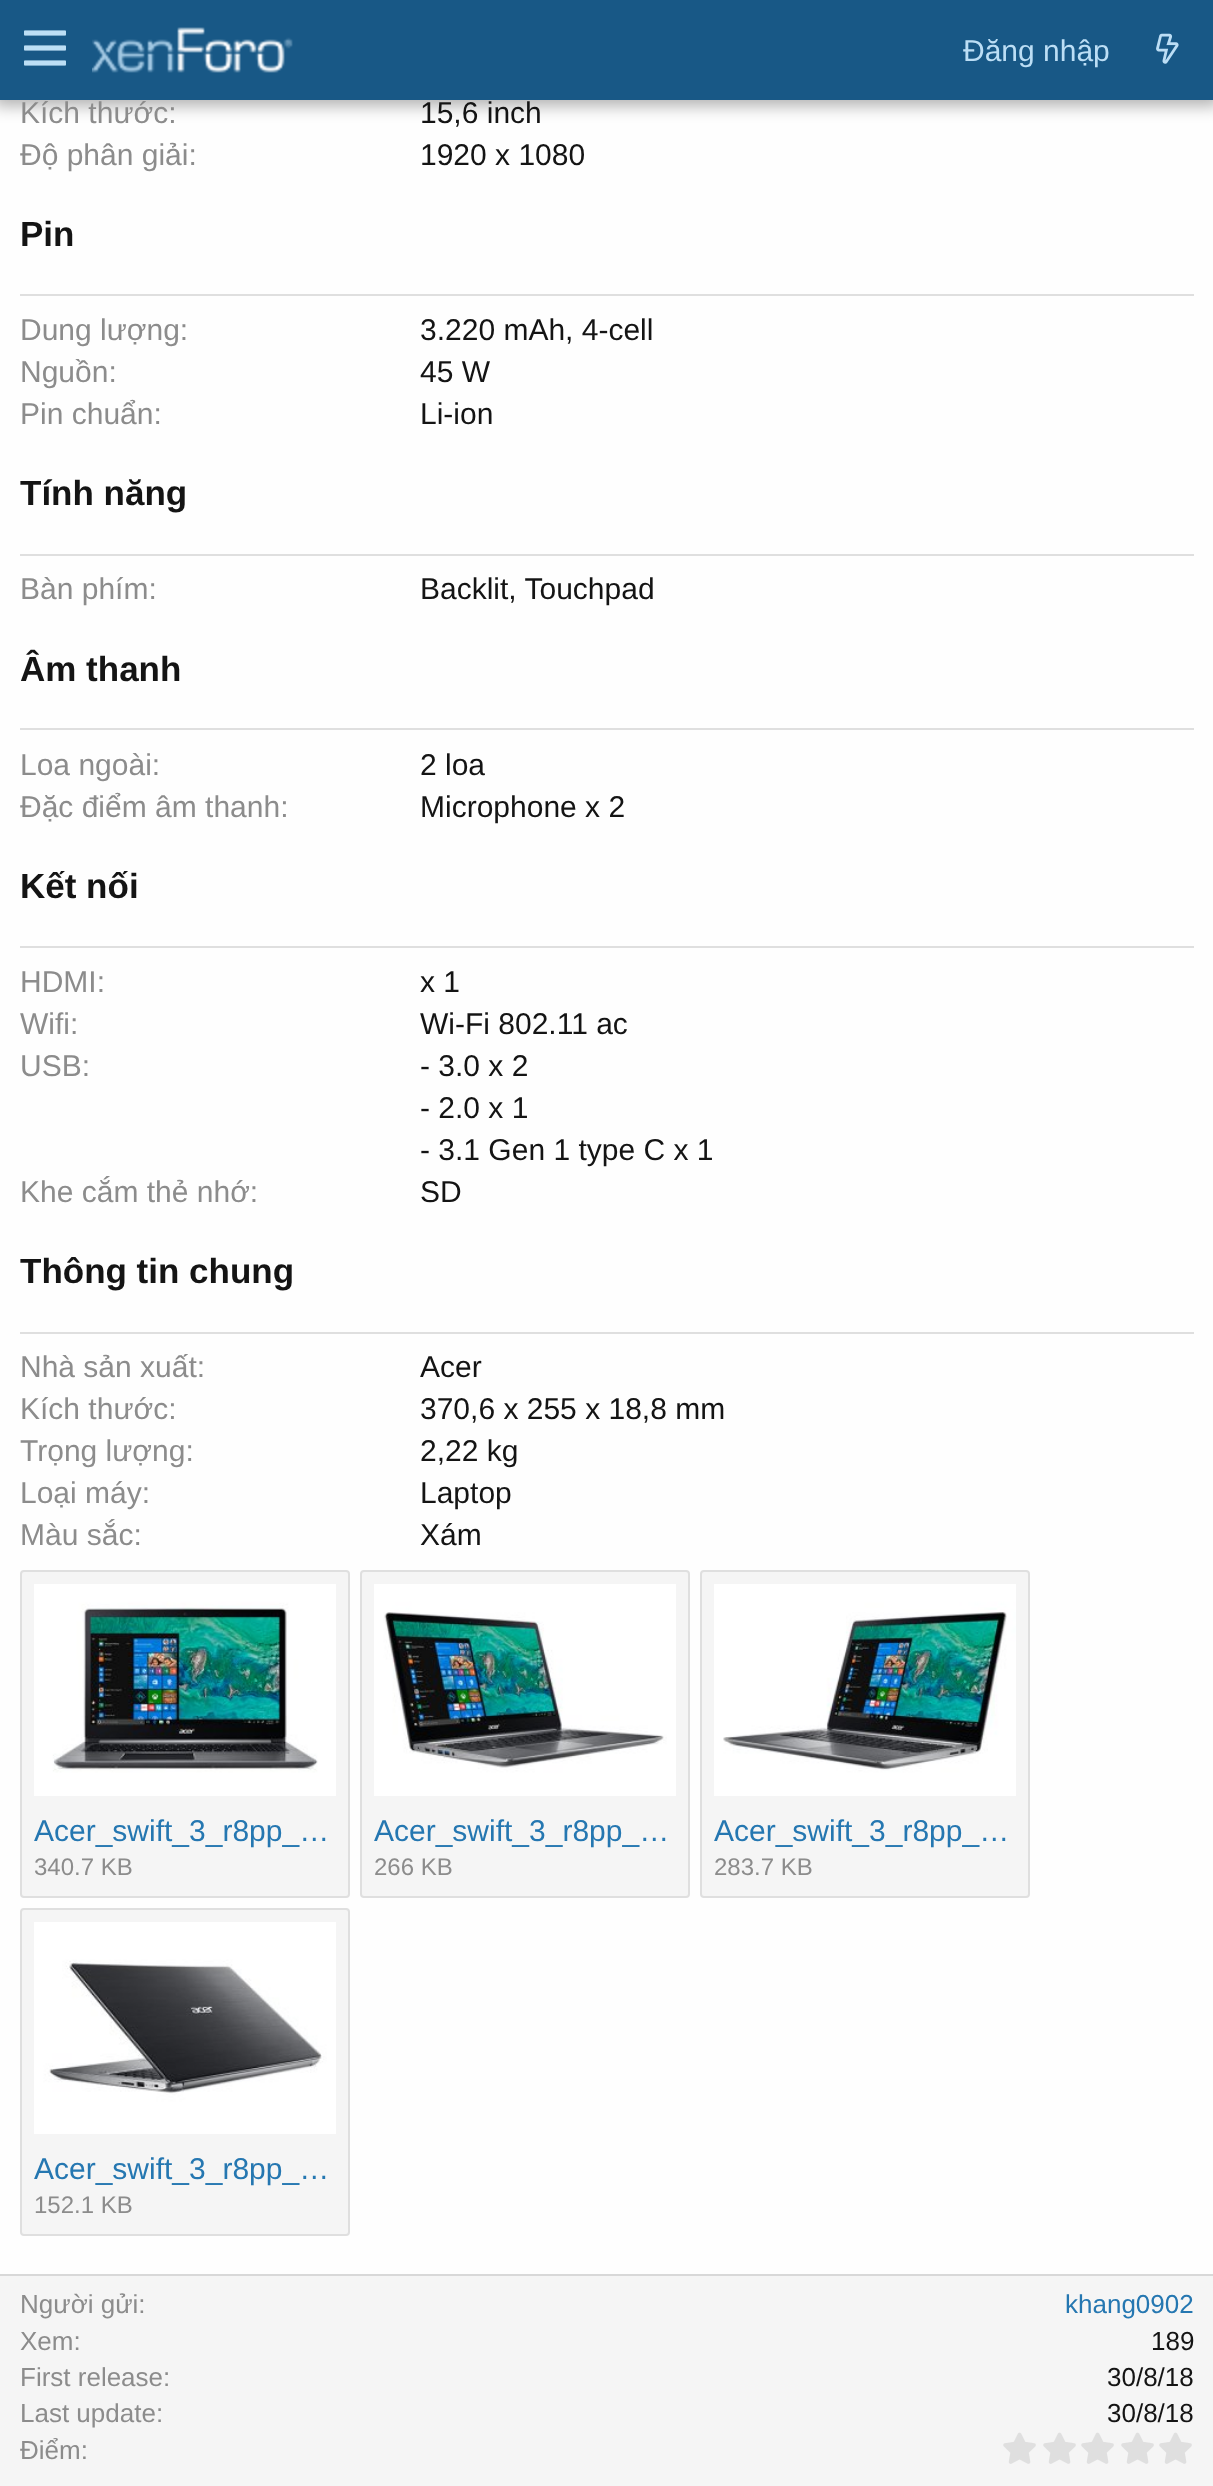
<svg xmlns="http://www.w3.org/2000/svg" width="1213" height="2486">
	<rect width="100%" height="100%" fill="#FEFEFE" />
	<rect x="-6" y="-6" width="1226" height="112" fill="#000000" fill-opacity="0.3" filter="blur(8px)" />
	<rect x="0" y="0" width="1213" height="100" fill="#185886" />
	<image x="24" y="30" width="42" height="36" href="assets/img1.png" />
	<image x="92" y="27" width="201" height="46" href="assets/img2.png" />
	<text x="963" y="61" font-family="Liberation Sans" font-size="30" fill="#BCDEF5">Đăng nhập</text>
	<image x="1156" y="33" width="23" height="31" href="assets/img3.png" />
	<text x="20" y="123" font-family="Liberation Sans" font-size="30" fill="#8C8C8C">Kích thước:</text>
	<text x="420" y="123" font-family="Liberation Sans" font-size="30" fill="#141414">15,6 inch</text>
	<text x="20" y="165" font-family="Liberation Sans" font-size="30" fill="#8C8C8C">Độ phân giải:</text>
	<text x="420" y="165" font-family="Liberation Sans" font-size="30" fill="#141414">1920 x 1080</text>
	<text x="20" y="246" font-family="Liberation Sans" font-size="35" font-weight="700" fill="#141414">Pin</text>
	<rect x="20" y="294" width="1174" height="2" fill="#DFDFDF" />
	<text x="20" y="340" font-family="Liberation Sans" font-size="30" fill="#8C8C8C">Dung lượng:</text>
	<text x="420" y="340" font-family="Liberation Sans" font-size="30" fill="#141414">3.220 mAh, 4-cell</text>
	<text x="20" y="382" font-family="Liberation Sans" font-size="30" fill="#8C8C8C">Nguồn:</text>
	<text x="420" y="382" font-family="Liberation Sans" font-size="30" fill="#141414">45 W</text>
	<text x="20" y="424" font-family="Liberation Sans" font-size="30" fill="#8C8C8C">Pin chuẩn:</text>
	<text x="420" y="424" font-family="Liberation Sans" font-size="30" fill="#141414">Li-ion</text>
	<text x="20" y="505" font-family="Liberation Sans" font-size="35" font-weight="700" fill="#141414">Tính năng</text>
	<rect x="20" y="554" width="1174" height="2" fill="#DFDFDF" />
	<text x="20" y="599" font-family="Liberation Sans" font-size="30" fill="#8C8C8C">Bàn phím:</text>
	<text x="420" y="599" font-family="Liberation Sans" font-size="30" fill="#141414">Backlit, Touchpad</text>
	<text x="20" y="681" font-family="Liberation Sans" font-size="35" font-weight="700" fill="#141414">Âm thanh</text>
	<rect x="20" y="728" width="1174" height="2" fill="#DFDFDF" />
	<text x="20" y="775" font-family="Liberation Sans" font-size="30" fill="#8C8C8C">Loa ngoài:</text>
	<text x="420" y="775" font-family="Liberation Sans" font-size="30" fill="#141414">2 loa</text>
	<text x="20" y="817" font-family="Liberation Sans" font-size="30" fill="#8C8C8C">Đặc điểm âm thanh:</text>
	<text x="420" y="817" font-family="Liberation Sans" font-size="30" fill="#141414">Microphone x 2</text>
	<text x="20" y="898" font-family="Liberation Sans" font-size="35" font-weight="700" fill="#141414">Kết nối</text>
	<rect x="20" y="946" width="1174" height="2" fill="#DFDFDF" />
	<text x="20" y="992" font-family="Liberation Sans" font-size="30" fill="#8C8C8C">HDMI:</text>
	<text x="420" y="992" font-family="Liberation Sans" font-size="30" fill="#141414">x 1</text>
	<text x="20" y="1034" font-family="Liberation Sans" font-size="30" fill="#8C8C8C">Wifi:</text>
	<text x="420" y="1034" font-family="Liberation Sans" font-size="30" fill="#141414">Wi-Fi 802.11 ac</text>
	<text x="20" y="1076" font-family="Liberation Sans" font-size="30" fill="#8C8C8C">USB:</text>
	<g font-family="Liberation Sans" font-size="30" fill="#141414">
		<text x="420" y="1076">- 3.0 x 2</text>
		<text x="420" y="1118">- 2.0 x 1</text>
		<text x="420" y="1160">- 3.1 Gen 1 type C x 1</text>
	</g>
	<text x="20" y="1202" font-family="Liberation Sans" font-size="30" fill="#8C8C8C">Khe cắm thẻ nhớ:</text>
	<text x="420" y="1202" font-family="Liberation Sans" font-size="30" fill="#141414">SD</text>
	<text x="20" y="1283" font-family="Liberation Sans" font-size="35" font-weight="700" fill="#141414">Thông tin chung</text>
	<rect x="20" y="1332" width="1174" height="2" fill="#DFDFDF" />
	<text x="20" y="1377" font-family="Liberation Sans" font-size="30" fill="#8C8C8C">Nhà sản xuất:</text>
	<text x="420" y="1377" font-family="Liberation Sans" font-size="30" fill="#141414">Acer</text>
	<text x="20" y="1419" font-family="Liberation Sans" font-size="30" fill="#8C8C8C">Kích thước:</text>
	<text x="420" y="1419" font-family="Liberation Sans" font-size="30" fill="#141414">370,6 x 255 x 18,8 mm</text>
	<text x="20" y="1461" font-family="Liberation Sans" font-size="30" fill="#8C8C8C">Trọng lượng:</text>
	<text x="420" y="1461" font-family="Liberation Sans" font-size="30" fill="#141414">2,22 kg</text>
	<text x="20" y="1503" font-family="Liberation Sans" font-size="30" fill="#8C8C8C">Loại máy:</text>
	<text x="420" y="1503" font-family="Liberation Sans" font-size="30" fill="#141414">Laptop</text>
	<text x="20" y="1545" font-family="Liberation Sans" font-size="30" fill="#8C8C8C">Màu sắc:</text>
	<text x="420" y="1545" font-family="Liberation Sans" font-size="30" fill="#141414">Xám</text>
	<rect x="21" y="1571" width="328" height="326" rx="3" fill="#F5F5F5" stroke="#DFDFDF" stroke-width="2" />
	<image x="34" y="1584" width="302" height="212" href="assets/img4.png" />
	<text x="34" y="1841" font-family="Liberation Sans" font-size="30" fill="#2577B1">Acer_swift_3_r8pp_…</text>
	<text x="34" y="1875" font-family="Liberation Sans" font-size="24" fill="#8C8C8C">340.7 KB</text>
	<rect x="361" y="1571" width="328" height="326" rx="3" fill="#F5F5F5" stroke="#DFDFDF" stroke-width="2" />
	<image x="374" y="1584" width="302" height="212" href="assets/img5.png" />
	<text x="374" y="1841" font-family="Liberation Sans" font-size="30" fill="#2577B1">Acer_swift_3_r8pp_…</text>
	<text x="374" y="1875" font-family="Liberation Sans" font-size="24" fill="#8C8C8C">266 KB</text>
	<rect x="701" y="1571" width="328" height="326" rx="3" fill="#F5F5F5" stroke="#DFDFDF" stroke-width="2" />
	<image x="714" y="1584" width="302" height="212" href="assets/img6.png" />
	<text x="714" y="1841" font-family="Liberation Sans" font-size="30" fill="#2577B1">Acer_swift_3_r8pp_…</text>
	<text x="714" y="1875" font-family="Liberation Sans" font-size="24" fill="#8C8C8C">283.7 KB</text>
	<rect x="21" y="1909" width="328" height="326" rx="3" fill="#F5F5F5" stroke="#DFDFDF" stroke-width="2" />
	<image x="34" y="1922" width="302" height="212" href="assets/img7.png" />
	<text x="34" y="2179" font-family="Liberation Sans" font-size="30" fill="#2577B1">Acer_swift_3_r8pp_…</text>
	<text x="34" y="2213" font-family="Liberation Sans" font-size="24" fill="#8C8C8C">152.1 KB</text>
	<rect x="0" y="2276" width="1213" height="210" fill="#F5F5F5" />
	<rect x="0" y="2274" width="1213" height="2" fill="#D8D8D8" />
	<text x="20" y="2313" font-family="Liberation Sans" font-size="26" fill="#8C8C8C">Người gửi:</text>
	<text x="1065" y="2313" font-family="Liberation Sans" font-size="26" fill="#2577B1">khang0902</text>
	<text x="20" y="2350" font-family="Liberation Sans" font-size="26" fill="#8C8C8C">Xem:</text>
	<text x="1151" y="2350" font-family="Liberation Sans" font-size="26" fill="#141414">189</text>
	<text x="20" y="2386" font-family="Liberation Sans" font-size="26" fill="#8C8C8C">First release:</text>
	<text x="1107" y="2386" font-family="Liberation Sans" font-size="26" fill="#141414">30/8/18</text>
	<text x="20" y="2422" font-family="Liberation Sans" font-size="26" fill="#8C8C8C">Last update:</text>
	<text x="1107" y="2422" font-family="Liberation Sans" font-size="26" fill="#141414">30/8/18</text>
	<text x="20" y="2459" font-family="Liberation Sans" font-size="26" fill="#8C8C8C">Điểm:</text>
	<image x="1003" y="2432" width="33" height="32" href="assets/img8.png" />
	<image x="1043" y="2432" width="33" height="32" href="assets/img8.png" />
	<image x="1081" y="2432" width="33" height="32" href="assets/img8.png" />
	<image x="1121" y="2432" width="33" height="32" href="assets/img8.png" />
	<image x="1159" y="2432" width="33" height="32" href="assets/img8.png" />
</svg>
